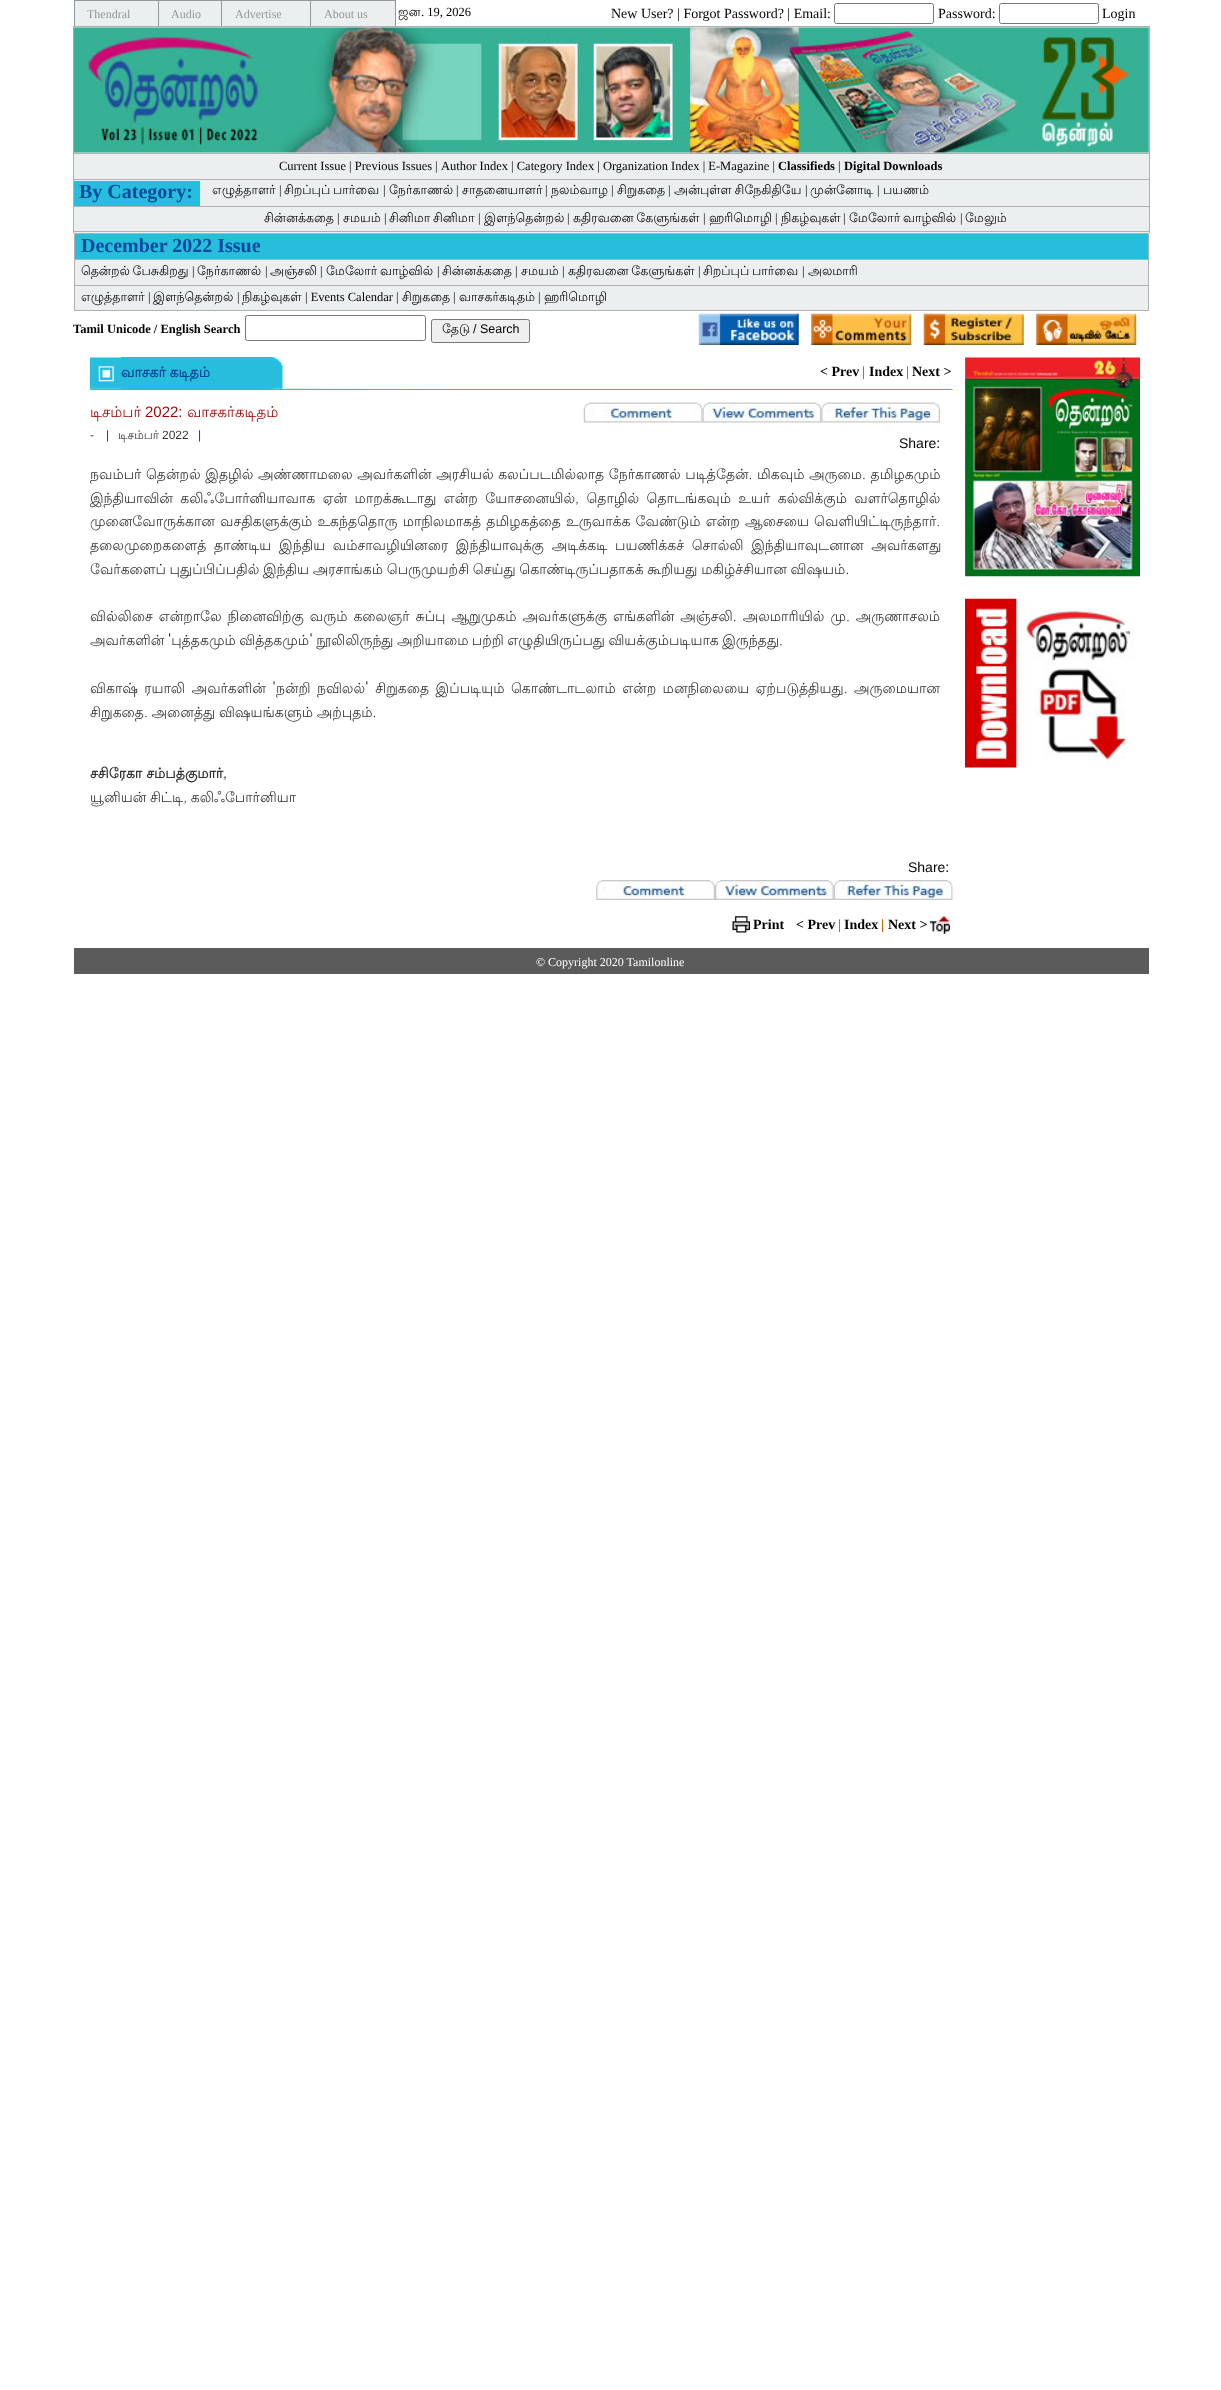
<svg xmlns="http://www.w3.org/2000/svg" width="1221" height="2390">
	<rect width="100%" height="100%" fill="#FFFFFF" />
	<rect x="75" y="1" width="320" height="25" fill="#EBEFF0" />
	<rect x="74" y="0" width="322" height="1" fill="#94979B" />
	<rect x="158" y="0" width="1" height="26" fill="#94979B" />
	<rect x="74" y="0" width="1" height="26" fill="#94979B" />
	<text x="87" y="18" font-family="Liberation Serif" font-size="12" fill="#94979B">Thendral</text>
	<rect x="221" y="0" width="1" height="26" fill="#94979B" />
	<text x="171" y="18" font-family="Liberation Serif" font-size="12" fill="#94979B">Audio</text>
	<rect x="310" y="0" width="1" height="26" fill="#94979B" />
	<text x="235" y="18" font-family="Liberation Serif" font-size="12" fill="#94979B">Advertise</text>
	<rect x="395" y="0" width="1" height="26" fill="#94979B" />
	<text x="324" y="18" font-family="Liberation Serif" font-size="12" fill="#94979B">About us</text>
	<text x="398" y="16" font-family="Lohit Tamil" font-size="12.5" fill="#000000">ஜன</text>
	<text x="421" y="16" font-family="Liberation Serif" font-size="12.5" fill="#000000">. 19, 2026</text>
	<text x="611" y="18" font-family="Liberation Serif" font-size="14" fill="#000000">New User? | Forgot Password? | Email:</text>
	<rect x="834.5" y="3.5" width="99" height="20" rx="2" fill="none" stroke="#767676" />
	<text x="938" y="18" font-family="Liberation Serif" font-size="14" fill="#000000">Password:</text>
	<rect x="999.5" y="3.5" width="99" height="20" rx="2" fill="none" stroke="#767676" />
	<text x="1102" y="18" font-family="Liberation Serif" font-size="14" fill="#000000">Login</text>
	<rect x="74" y="27" width="1075" height="206" fill="#EBEFF0" />
	<rect x="73" y="26" width="1077" height="1" fill="#B0B0B0" />
	<rect x="1149" y="26" width="1" height="207" fill="#B0B0B0" />
	<rect x="73" y="231" width="1077" height="1" fill="#B0B0B0" />
	<rect x="73" y="153" width="1076" height="1" fill="#B0B0B0" />
	<rect x="73" y="179" width="1076" height="1" fill="#B0B0B0" />
	<rect x="73" y="206" width="1076" height="1" fill="#B0B0B0" />
	<rect x="73" y="26" width="1" height="207" fill="#B0B0B0" />
	<image x="73" y="27" width="1076" height="126" href="assets/img1.png" />
	<g font-family="Liberation Serif" font-size="12.5" fill="#000000">
		<text x="279" y="170">Current Issue | Previous Issues</text>
		<text x="435" y="170">|</text>
		<text x="441" y="170">Author Index | Category Index | Organization Index | E-Magazine |</text>
	</g>
	<text x="778" y="170" font-family="Liberation Serif" font-size="12.5" font-weight="700" fill="#000000">Classifieds</text>
	<text x="838" y="170" font-family="Liberation Serif" font-size="12.5" fill="#000000">|</text>
	<text x="844" y="170" font-family="Liberation Serif" font-size="12.5" font-weight="700" fill="#000000">Digital Downloads</text>
	<rect x="74" y="181" width="126" height="25" fill="#27BEDD" />
	<text x="79" y="198" font-family="Liberation Serif" font-size="20" font-weight="700" fill="#08499D">By Category:</text>
	<text x="212" y="194" font-family="Lohit Tamil" font-size="12.5" fill="#000000">எழுத்தாளர்</text>
	<text x="279" y="194" font-family="Liberation Serif" font-size="12.5" fill="#000000">|</text>
	<text x="284" y="194" word-spacing="-1" font-family="Lohit Tamil" font-size="12.5" fill="#000000">சிறப்புப் பார்வை</text>
	<text x="383" y="194" font-family="Liberation Serif" font-size="12.5" fill="#000000">|</text>
	<text x="389" y="194" font-family="Lohit Tamil" font-size="12.5" fill="#000000">நேர்காணல்</text>
	<text x="456" y="194" font-family="Liberation Serif" font-size="12.5" fill="#000000">|</text>
	<text x="462" y="194" font-family="Lohit Tamil" font-size="12.5" fill="#000000">சாதனையாளர்</text>
	<text x="545" y="194" font-family="Liberation Serif" font-size="12.5" fill="#000000">|</text>
	<text x="551" y="194" font-family="Lohit Tamil" font-size="12.5" fill="#000000">நலம்வாழ</text>
	<text x="611" y="194" font-family="Liberation Serif" font-size="12.5" fill="#000000">|</text>
	<text x="617" y="194" font-family="Lohit Tamil" font-size="12.5" fill="#000000">சிறுகதை</text>
	<text x="668" y="194" font-family="Liberation Serif" font-size="12.5" fill="#000000">|</text>
	<text x="674" y="194" word-spacing="-1" font-family="Lohit Tamil" font-size="12.5" fill="#000000">அன்புள்ள சிநேகிதியே</text>
	<text x="805" y="194" font-family="Liberation Serif" font-size="12.5" fill="#000000">|</text>
	<text x="810" y="194" font-family="Lohit Tamil" font-size="12.5" fill="#000000">முன்னோடி</text>
	<text x="877" y="194" font-family="Liberation Serif" font-size="12.5" fill="#000000">|</text>
	<g font-family="Lohit Tamil" font-size="12.5" fill="#000000">
		<text x="883" y="194">பயணம்</text>
		<text x="264" y="222">சின்னக்கதை</text>
	</g>
	<text x="337" y="222" font-family="Liberation Serif" font-size="12.5" fill="#000000">|</text>
	<text x="343" y="222" font-family="Lohit Tamil" font-size="12.5" fill="#000000">சமயம்</text>
	<text x="384" y="222" font-family="Liberation Serif" font-size="12.5" fill="#000000">|</text>
	<text x="389" y="222" word-spacing="-1" font-family="Lohit Tamil" font-size="12.5" fill="#000000">சினிமா சினிமா</text>
	<text x="478" y="222" font-family="Liberation Serif" font-size="12.5" fill="#000000">|</text>
	<text x="484" y="222" font-family="Lohit Tamil" font-size="12.5" fill="#000000">இளந்தென்றல்</text>
	<text x="567" y="222" font-family="Liberation Serif" font-size="12.5" fill="#000000">|</text>
	<text x="573" y="222" word-spacing="-1" font-family="Lohit Tamil" font-size="12.5" fill="#000000">கதிரவனை கேளுங்கள்</text>
	<text x="703" y="222" font-family="Liberation Serif" font-size="12.5" fill="#000000">|</text>
	<text x="709" y="222" font-family="Lohit Tamil" font-size="12.5" fill="#000000">ஹரிமொழி</text>
	<text x="775" y="222" font-family="Liberation Serif" font-size="12.5" fill="#000000">|</text>
	<text x="781" y="222" font-family="Lohit Tamil" font-size="12.5" fill="#000000">நிகழ்வுகள்</text>
	<text x="843" y="222" font-family="Liberation Serif" font-size="12.5" fill="#000000">|</text>
	<text x="849" y="222" word-spacing="-1" font-family="Lohit Tamil" font-size="12.5" fill="#000000">மேலோர் வாழ்வில்</text>
	<text x="960" y="222" font-family="Liberation Serif" font-size="12.5" fill="#000000">|</text>
	<text x="965" y="222" font-family="Lohit Tamil" font-size="12.5" fill="#000000">மேலும்</text>
	<rect x="75" y="260" width="1073" height="50" fill="#EBEFF0" />
	<rect x="74" y="233" width="1075" height="1" fill="#B0B0B0" />
	<rect x="1148" y="233" width="1" height="78" fill="#B0B0B0" />
	<rect x="74" y="310" width="1075" height="1" fill="#B0B0B0" />
	<rect x="74" y="259" width="1074" height="1" fill="#B0B0B0" />
	<rect x="74" y="285" width="1074" height="1" fill="#B0B0B0" />
	<rect x="74" y="233" width="1" height="78" fill="#B0B0B0" />
	<rect x="75" y="234" width="1073" height="25" fill="#27BEDD" />
	<text x="81" y="252" font-family="Liberation Serif" font-size="20" font-weight="700" fill="#08499D">December 2022 Issue</text>
	<text x="81" y="275" word-spacing="-1" font-family="Lohit Tamil" font-size="12.5" fill="#000000">தென்றல் பேசுகிறது</text>
	<text x="192" y="275" font-family="Liberation Serif" font-size="12.5" fill="#000000">|</text>
	<text x="197" y="275" font-family="Lohit Tamil" font-size="12.5" fill="#000000">நேர்காணல்</text>
	<text x="265" y="275" font-family="Liberation Serif" font-size="12.5" fill="#000000">|</text>
	<text x="270" y="275" font-family="Lohit Tamil" font-size="12.5" fill="#000000">அஞ்சலி</text>
	<text x="320" y="275" font-family="Liberation Serif" font-size="12.5" fill="#000000">|</text>
	<text x="326" y="275" word-spacing="-1" font-family="Lohit Tamil" font-size="12.5" fill="#000000">மேலோர் வாழ்வில்</text>
	<text x="437" y="275" font-family="Liberation Serif" font-size="12.5" fill="#000000">|</text>
	<text x="442" y="275" font-family="Lohit Tamil" font-size="12.5" fill="#000000">சின்னக்கதை</text>
	<text x="515" y="275" font-family="Liberation Serif" font-size="12.5" fill="#000000">|</text>
	<text x="521" y="275" font-family="Lohit Tamil" font-size="12.5" fill="#000000">சமயம்</text>
	<text x="562" y="275" font-family="Liberation Serif" font-size="12.5" fill="#000000">|</text>
	<text x="568" y="275" word-spacing="-1" font-family="Lohit Tamil" font-size="12.5" fill="#000000">கதிரவனை கேளுங்கள்</text>
	<text x="698" y="275" font-family="Liberation Serif" font-size="12.5" fill="#000000">|</text>
	<text x="703" y="275" word-spacing="-1" font-family="Lohit Tamil" font-size="12.5" fill="#000000">சிறப்புப் பார்வை</text>
	<text x="802" y="275" font-family="Liberation Serif" font-size="12.5" fill="#000000">|</text>
	<g font-family="Lohit Tamil" font-size="12.5" fill="#000000">
		<text x="808" y="275">அலமாரி</text>
		<text x="81" y="301">எழுத்தாளர்</text>
	</g>
	<text x="148" y="301" font-family="Liberation Serif" font-size="12.5" fill="#000000">|</text>
	<text x="153" y="301" font-family="Lohit Tamil" font-size="12.5" fill="#000000">இளந்தென்றல்</text>
	<text x="237" y="301" font-family="Liberation Serif" font-size="12.5" fill="#000000">|</text>
	<text x="242" y="301" font-family="Lohit Tamil" font-size="12.5" fill="#000000">நிகழ்வுகள்</text>
	<text x="305" y="301" font-family="Liberation Serif" font-size="12.5" fill="#000000">| Events Calendar |</text>
	<text x="402" y="301" font-family="Lohit Tamil" font-size="12.5" fill="#000000">சிறுகதை</text>
	<text x="453" y="301" font-family="Liberation Serif" font-size="12.5" fill="#000000">|</text>
	<text x="459" y="301" font-family="Lohit Tamil" font-size="12.5" fill="#000000">வாசகர்கடிதம்</text>
	<text x="538" y="301" font-family="Liberation Serif" font-size="12.5" fill="#000000">|</text>
	<text x="544" y="301" font-family="Lohit Tamil" font-size="12.5" fill="#000000">ஹரிமொழி</text>
	<text x="73" y="333" font-family="Liberation Serif" font-size="12.5" font-weight="700" fill="#000000">Tamil Unicode / English Search</text>
	<rect x="245.5" y="315.5" width="180" height="25" rx="2" fill="none" stroke="#767676" />
	<rect x="431.5" y="319.5" width="98" height="23" rx="2" fill="#EFEFEF" stroke="#767676" />
	<text x="442" y="333" font-family="Lohit Tamil" font-size="12.5" fill="#000000">தேடு</text>
	<text x="473" y="333" font-family="Liberation Sans" font-size="12.5" fill="#000000">/ Search</text>
	<image x="698" y="313" width="101" height="32" href="assets/img2.png" />
	<image x="811" y="313" width="101" height="32" href="assets/img3.png" />
	<image x="923" y="313" width="101" height="32" href="assets/img4.png" />
	<image x="1036" y="313" width="101" height="32" href="assets/img5.png" />
	<image x="90" y="357" width="31" height="32" href="assets/img6.png" />
	<rect x="121" y="357" width="152" height="32" fill="#27BEDD" />
	<text x="121" y="377" word-spacing="-0.5" font-family="Lohit Tamil" font-size="14" font-weight="700" fill="#08499D">வாசகர் கடிதம்</text>
	<image x="272" y="357" width="11" height="32" href="assets/img7.png" />
	<text x="820" y="376" font-family="Liberation Serif" font-size="14" font-weight="700" fill="#000000">&lt; Prev</text>
	<text x="862" y="376" font-family="Liberation Serif" font-size="14" font-weight="700" fill="#D16200">|</text>
	<text x="869" y="376" font-family="Liberation Serif" font-size="14" font-weight="700" fill="#000000">Index</text>
	<text x="906" y="376" font-family="Liberation Serif" font-size="14" font-weight="700" fill="#D16200">|</text>
	<text x="912" y="376" font-family="Liberation Serif" font-size="14" font-weight="700" fill="#000000">Next &gt;</text>
	<image x="90" y="388" width="863" height="2" href="assets/img8.png" />
	<text x="90" y="417" font-family="Lohit Tamil" font-size="15" fill="#9E0000">டிசம்பர்</text>
	<text x="145" y="417" font-family="Liberation Sans" font-size="15" fill="#9E0000">2022:</text>
	<text x="187" y="417" font-family="Lohit Tamil" font-size="15" fill="#9E0000">வாசகர்கடிதம்</text>
	<image x="583" y="402" width="120" height="21" href="assets/img9.png" />
	<image x="702" y="402" width="120" height="21" href="assets/img10.png" />
	<image x="821" y="402" width="119" height="21" href="assets/img11.png" />
	<text x="90" y="439" font-family="Liberation Sans" font-size="12" fill="#132FBF">-</text>
	<text x="106" y="439" font-family="Liberation Sans" font-size="12" fill="#333333">|</text>
	<text x="118" y="439" font-family="Lohit Tamil" font-size="12" fill="#333333">டிசம்பர்</text>
	<g font-family="Liberation Sans" font-size="12" fill="#333333">
		<text x="162" y="439">2022</text>
		<text x="198" y="439">|</text>
	</g>
	<text x="899" y="448" font-family="Liberation Sans" font-size="14" fill="#000000">Share:</text>
	<g font-family="Lohit Tamil" font-size="14" fill="#333333">
		<text x="90" y="479" word-spacing="0.4">நவம்பர் தென்றல் இதழில் அண்ணாமலை அவர்களின் அரசியல் கலப்படமில்லாத நேர்காணல் படித்தேன். மிகவும் அருமை. தமிழகமும்</text>
		<text x="90" y="503" word-spacing="3.25">இந்தியாவின் கலிஃபோர்னியாவாக ஏன் மாறக்கூடாது என்ற யோசனையில், தொழில் தொடங்கவும் உயர் கல்விக்கும் வளர்தொழில்</text>
		<text x="90" y="526" word-spacing="1">முனைவோருக்கான வசதிகளுக்கும் உகந்ததொரு மாநிலமாகத் தமிழகத்தை உருவாக்க வேண்டும் என்ற ஆசையை வெளியிட்டிருந்தார்.</text>
		<text x="90" y="550" word-spacing="3.5">தலைமுறைகளைத் தாண்டிய இந்திய வம்சாவழியினரை இந்தியாவுக்கு அடிக்கடி பயணிக்கச் சொல்லி இந்தியாவுடனான அவர்களது</text>
		<text x="90" y="574" word-spacing="-0.5">வேர்களைப் புதுப்பிப்பதில் இந்திய அரசாங்கம் பெருமுயற்சி செய்து கொண்டிருப்பதாகக் கூறியது மகிழ்ச்சியான விஷயம்.</text>
		<text x="90" y="621" word-spacing="1.75">வில்லிசை என்றாலே நினைவிற்கு வரும் கலைஞர் சுப்பு ஆறுமுகம் அவர்களுக்கு எங்களின் அஞ்சலி. அலமாரியில் மு. அருணாசலம்</text>
		<text x="90" y="645" word-spacing="-0.75">அவர்களின் 'புத்தகமும் வித்தகமும்' நூலிலிருந்து அறியாமை பற்றி எழுதியிருப்பது வியக்கும்படியாக இருந்தது.</text>
		<text x="90" y="693" word-spacing="2.25">விகாஷ் ரயாலி அவர்களின் 'நன்றி நவிலல்' சிறுகதை இப்படியும் கொண்டாடலாம் என்ற மனநிலையை ஏற்படுத்தியது. அருமையான</text>
		<text x="90" y="717" word-spacing="-0.5">சிறுகதை. அனைத்து விஷயங்களும் அற்புதம்.</text>
	</g>
	<text x="90" y="778" font-family="Lohit Tamil" font-size="14" font-weight="700" fill="#333333">சசிரேகா சம்பத்குமார்</text>
	<text x="223" y="778" font-family="Liberation Sans" font-size="14" fill="#333333">,</text>
	<text x="90" y="802" word-spacing="-0.5" font-family="Lohit Tamil" font-size="14" fill="#333333">யூனியன் சிட்டி, கலிஃபோர்னியா</text>
	<text x="908" y="872" font-family="Liberation Sans" font-size="14" fill="#000000">Share:</text>
	<image x="596" y="880" width="119" height="20" href="assets/img12.png" />
	<image x="715" y="880" width="119" height="20" href="assets/img13.png" />
	<image x="833" y="880" width="120" height="20" href="assets/img14.png" />
	<image x="732" y="916" width="18" height="17" href="assets/img15.png" />
	<g font-family="Liberation Serif" font-size="14" font-weight="700" fill="#000000">
		<text x="753" y="929">Print</text>
		<text x="796" y="929">&lt; Prev</text>
	</g>
	<text x="838" y="929" font-family="Liberation Serif" font-size="14" font-weight="700" fill="#D16200">|</text>
	<text x="844" y="929" font-family="Liberation Serif" font-size="14" font-weight="700" fill="#000000">Index</text>
	<text x="881" y="929" font-family="Liberation Serif" font-size="14" font-weight="700" fill="#D16200">|</text>
	<text x="888" y="929" font-family="Liberation Serif" font-size="14" font-weight="700" fill="#000000">Next &gt;</text>
	<image x="930" y="916" width="20" height="18" href="assets/img16.png" />
	<image x="965" y="357" width="175" height="220" href="assets/img17.png" />
	<image x="965" y="598" width="170" height="170" href="assets/img18.png" />
	<rect x="74" y="948" width="1075" height="26" fill="#5B5B5B" />
	<text x="536" y="966" font-family="Liberation Serif" font-size="12" fill="#FFFFFF">© Copyright 2020 Tamilonline</text>
</svg>
